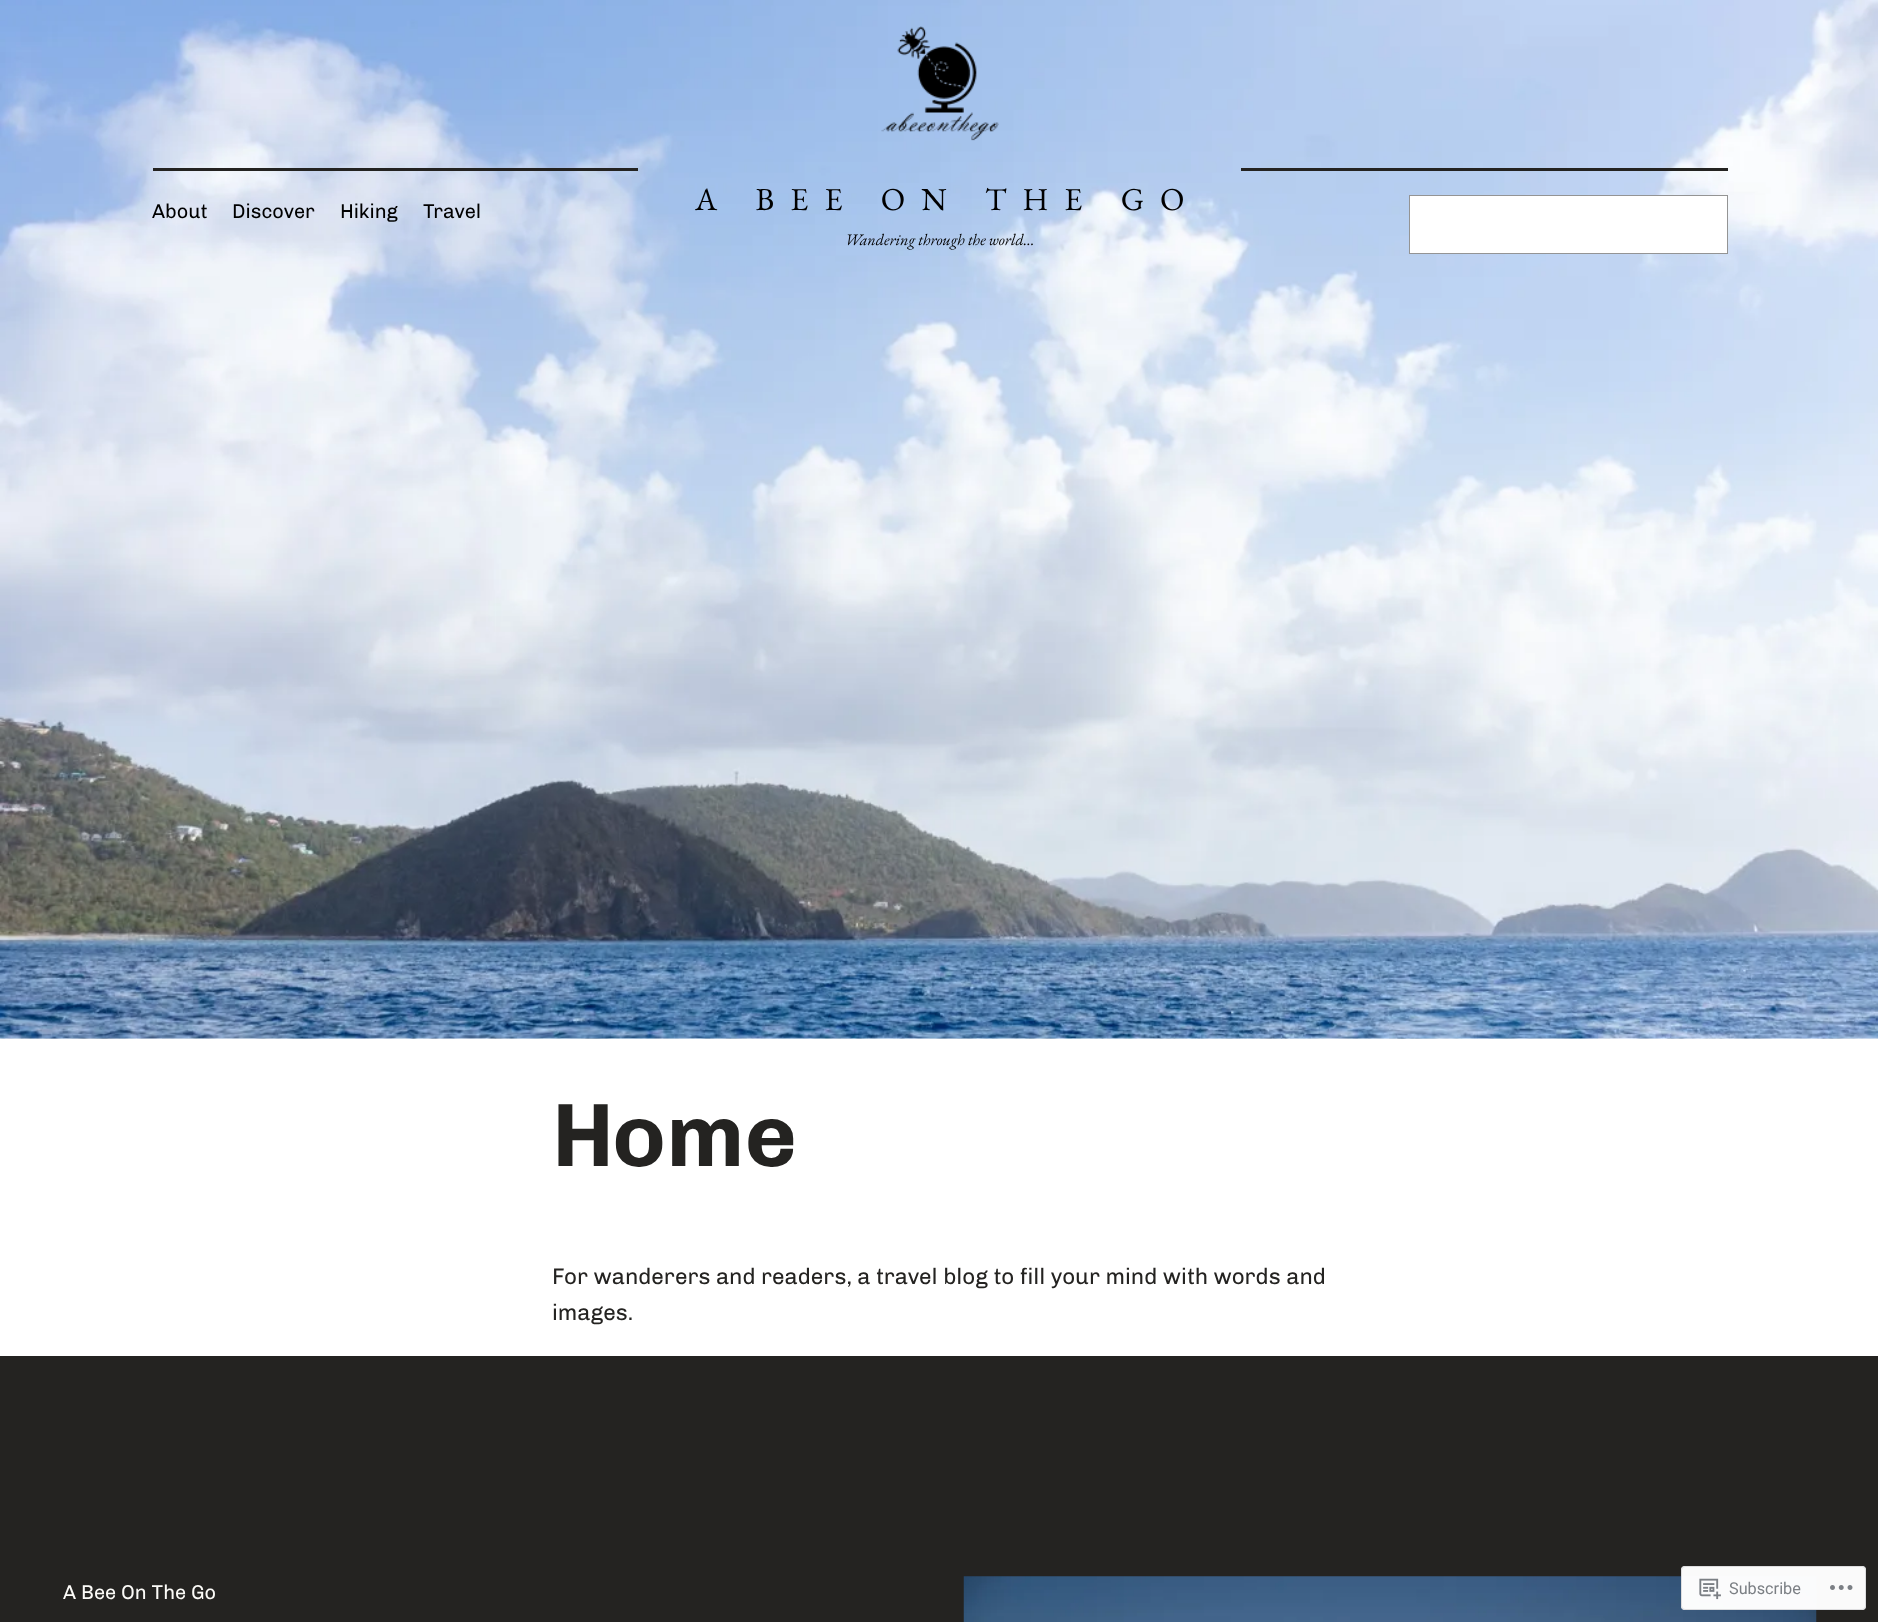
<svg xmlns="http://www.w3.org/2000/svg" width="1878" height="1622">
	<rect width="100%" height="100%" fill="#FFFFFF" />
	<image x="0" y="0" width="1878" height="1039" href="assets/img1.png" />
	<image x="881" y="26" width="118" height="115" href="assets/img2.png" />
	<rect x="153" y="168" width="485" height="3" fill="#242321" />
	<g font-family="Chivo" font-size="20" fill="#000000">
		<text x="152" y="218">About</text>
		<text x="232" y="218">Discover</text>
		<text x="340" y="218">Hiking</text>
		<text x="423" y="218">Travel</text>
	</g>
	<text x="695" y="210" font-family="EB Garamond" font-size="32" letter-spacing="16" fill="#000000">A BEE ON THE GO</text>
	<text x="845" y="245" font-family="EB Garamond" font-size="16" font-style="italic" fill="#000000">Wandering through the world…</text>
	<rect x="1241" y="168" width="487" height="3" fill="#242321" />
	<rect x="1409.5" y="195.5" width="318" height="58" fill="#FFFFFF" stroke="#949494" />
	<text x="552" y="1166" font-family="Chivo" font-size="90" font-weight="700" fill="#242321">Home</text>
	<g font-family="Chivo" font-size="22.5" fill="#242321">
		<text x="552" y="1284">For wanderers and readers, a travel blog to fill your mind with words and</text>
		<text x="552" y="1320">images.</text>
	</g>
	<rect x="0" y="1356" width="1878" height="266" fill="#242321" />
	<text x="63" y="1599" font-family="Chivo" font-size="20" fill="#FCFBF8">A Bee On The Go</text>
	<image x="963" y="1576" width="854" height="46" href="assets/img3.png" />
	<rect x="1681" y="1566" width="185" height="44" rx="4" fill="#FFFFFF" fill-opacity="0.98" />
	<rect x="1681.5" y="1566.5" width="184" height="43" rx="3.5" fill="none" stroke="#DCDCDE" stroke-opacity="0.98" />
	<image x="1699" y="1578" width="22" height="22" href="assets/img4.png" />
	<text x="1729" y="1594" font-family="Roboto" font-size="16.25" fill="#7B7F84">Subscribe</text>
	<image x="1830" y="1585" width="23" height="5" href="assets/img5.png" />
</svg>
